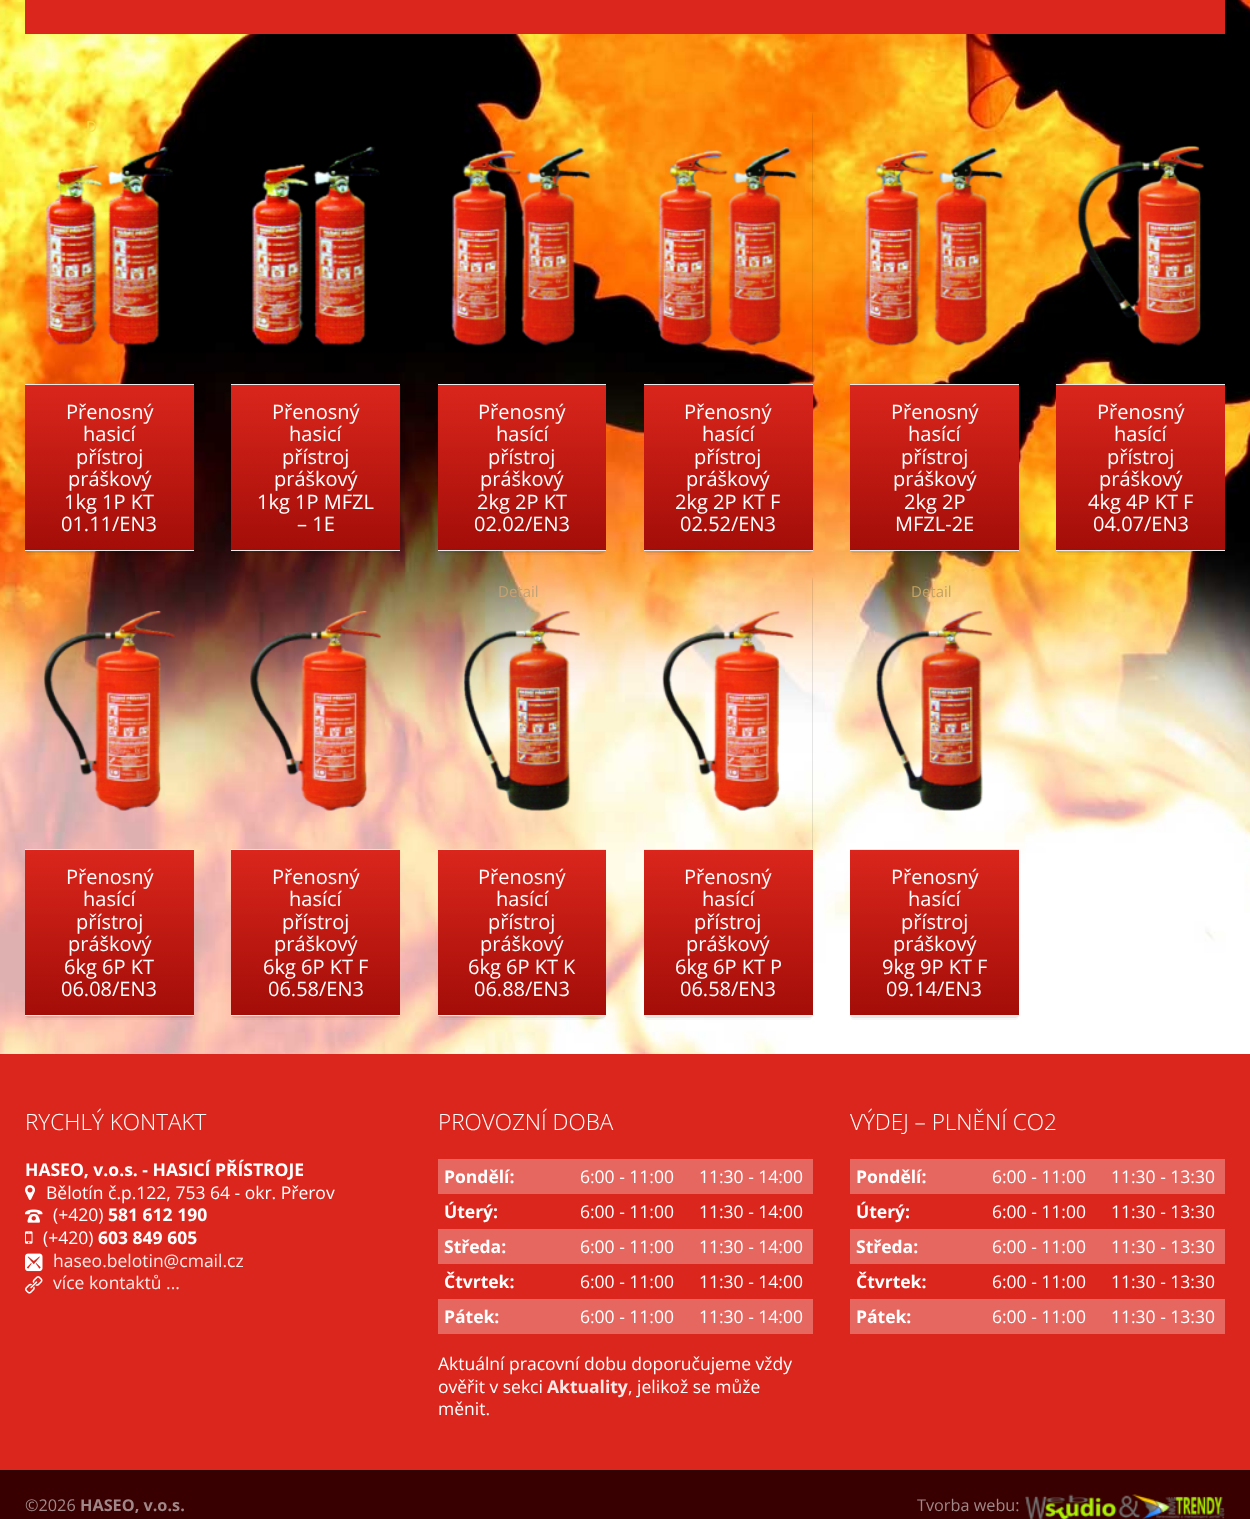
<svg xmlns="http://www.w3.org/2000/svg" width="1250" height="1519">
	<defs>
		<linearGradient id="g1" gradientUnits="userSpaceOnUse" x1="109" y1="385" x2="109" y2="550"><stop offset="0" stop-color="#DA261C" /><stop offset="1" stop-color="#A30D08" /></linearGradient>
		<linearGradient id="g2" gradientUnits="userSpaceOnUse" x1="316" y1="385" x2="316" y2="550"><stop offset="0" stop-color="#DA261C" /><stop offset="1" stop-color="#A30D08" /></linearGradient>
		<linearGradient id="g3" gradientUnits="userSpaceOnUse" x1="522" y1="385" x2="522" y2="550"><stop offset="0" stop-color="#DA261C" /><stop offset="1" stop-color="#A30D08" /></linearGradient>
		<linearGradient id="g4" gradientUnits="userSpaceOnUse" x1="728" y1="385" x2="728" y2="550"><stop offset="0" stop-color="#DA261C" /><stop offset="1" stop-color="#A30D08" /></linearGradient>
		<linearGradient id="g5" gradientUnits="userSpaceOnUse" x1="934" y1="385" x2="934" y2="550"><stop offset="0" stop-color="#DA261C" /><stop offset="1" stop-color="#A30D08" /></linearGradient>
		<linearGradient id="g6" gradientUnits="userSpaceOnUse" x1="1141" y1="385" x2="1141" y2="550"><stop offset="0" stop-color="#DA261C" /><stop offset="1" stop-color="#A30D08" /></linearGradient>
		<linearGradient id="g7" gradientUnits="userSpaceOnUse" x1="109" y1="850" x2="109" y2="1015"><stop offset="0" stop-color="#DA261C" /><stop offset="1" stop-color="#A30D08" /></linearGradient>
		<linearGradient id="g8" gradientUnits="userSpaceOnUse" x1="316" y1="850" x2="316" y2="1015"><stop offset="0" stop-color="#DA261C" /><stop offset="1" stop-color="#A30D08" /></linearGradient>
		<linearGradient id="g9" gradientUnits="userSpaceOnUse" x1="522" y1="850" x2="522" y2="1015"><stop offset="0" stop-color="#DA261C" /><stop offset="1" stop-color="#A30D08" /></linearGradient>
		<linearGradient id="g10" gradientUnits="userSpaceOnUse" x1="728" y1="850" x2="728" y2="1015"><stop offset="0" stop-color="#DA261C" /><stop offset="1" stop-color="#A30D08" /></linearGradient>
		<linearGradient id="g11" gradientUnits="userSpaceOnUse" x1="934" y1="850" x2="934" y2="1015"><stop offset="0" stop-color="#DA261C" /><stop offset="1" stop-color="#A30D08" /></linearGradient>
	</defs>
	<rect width="100%" height="100%" fill="#FFFFFF" />
	<image x="0" y="0" width="1250" height="1054" href="assets/img1.png" />
	<rect x="25" y="0" width="1200" height="34" fill="#DA261C" />
	<path d="M25 548V549C25 551 27 553 29 553H190C192 553 194 551 194 549V113V548C194 550 192 551 190 551H29C27 551 25 550 25 548Z" fill="#000000" fill-opacity="0.07" />
	<path d="M25 548V551C25 553 27 555 29 555H190C192 555 194 553 194 551V116V548C194 550 192 551 190 551H29C27 551 25 550 25 548Z" fill="#000000" fill-opacity="0.03" />
	<rect x="25" y="384" width="169" height="1" fill="#EBEBEB" />
	<text x="86" y="132" font-family="Open Sans" font-size="15" fill="#FAE041">D</text>
	<image x="45" y="146" width="128" height="200" href="assets/img2.png" />
	<rect x="25" y="385" width="169" height="165" fill="url(#g1)" />
	<rect x="25" y="550" width="169" height="1" fill="#EBEBEB" />
	<g font-family="Open Sans" font-size="20" fill="#FFFFFF">
		<text x="66" y="419">Přenosný</text>
		<text x="83" y="441">hasicí</text>
		<text x="76" y="464">přístroj</text>
		<text x="68" y="486">práškový</text>
		<text x="64" y="509">1kg 1P KT</text>
		<text x="61" y="531">01.11/EN3</text>
	</g>
	<path d="M231 113V549C231 551 233 553 235 553H396C398 553 400 551 400 549V548C400 550 398 551 396 551H235C233 551 231 550 231 548Z" fill="#000000" fill-opacity="0.07" />
	<path d="M231 116V551C231 553 233 555 235 555H396C398 555 400 553 400 551V548C400 550 398 551 396 551H235C233 551 231 550 231 548Z" fill="#000000" fill-opacity="0.03" />
	<rect x="231" y="384" width="169" height="1" fill="#EBEBEB" />
	<image x="251" y="146" width="129" height="200" href="assets/img3.png" />
	<path d="M353 108H352V149C352 152 350 154 348 154H278C276 154 274 153 273 152C274 154 276 155 278 155H348C351 155 353 153 353 150Z" fill="#000000" />
	<rect x="231" y="385" width="169" height="165" fill="url(#g2)" />
	<rect x="231" y="550" width="169" height="1" fill="#EBEBEB" />
	<g font-family="Open Sans" font-size="20" fill="#FFFFFF">
		<text x="272" y="419">Přenosný</text>
		<text x="289" y="441">hasicí</text>
		<text x="282" y="464">přístroj</text>
		<text x="274" y="486">práškový</text>
		<text x="257" y="509">1kg 1P MFZL</text>
		<text x="297" y="531">– 1E</text>
	</g>
	<path d="M438 549L439 552L441 553H575C583 553 606 558 606 549L604 551C603 551 442 552 440 551Z" fill="#000000" fill-opacity="0.07" />
	<path d="M438 549V551C438 553 440 555 442 555H602C604 555 606 553 606 551V549L604 551C603 551 442 552 440 551Z" fill="#000000" fill-opacity="0.03" />
	<rect x="438" y="384" width="168" height="1" fill="#EBEBEB" />
	<image x="451" y="146" width="141" height="200" href="assets/img4.png" />
	<rect x="438" y="385" width="168" height="165" fill="url(#g3)" />
	<rect x="438" y="550" width="168" height="1" fill="#EBEBEB" />
	<g font-family="Open Sans" font-size="20" fill="#FFFFFF">
		<text x="478" y="419">Přenosný</text>
		<text x="496" y="441">hasící</text>
		<text x="488" y="464">přístroj</text>
		<text x="480" y="486">práškový</text>
		<text x="477" y="509">2kg 2P KT</text>
		<text x="474" y="531">02.02/EN3</text>
	</g>
	<path d="M644 549C644 551 646 553 648 553H809C811 553 813 551 813 549V114L812 112V548C812 550 811 551 809 551H648C646 551 645 550 644 549Z" fill="#000000" fill-opacity="0.07" />
	<path d="M644 549V551C644 553 646 555 648 555H809C811 555 813 553 813 551V117L812 115V548C812 550 811 551 809 551H648C646 551 645 550 644 549Z" fill="#000000" fill-opacity="0.03" />
	<rect x="644" y="384" width="169" height="1" fill="#EBEBEB" />
	<image x="657" y="146" width="141" height="200" href="assets/img5.png" />
	<rect x="644" y="385" width="169" height="165" fill="url(#g4)" />
	<rect x="644" y="550" width="169" height="1" fill="#EBEBEB" />
	<g font-family="Open Sans" font-size="20" fill="#FFFFFF">
		<text x="684" y="419">Přenosný</text>
		<text x="702" y="441">hasící</text>
		<text x="694" y="464">přístroj</text>
		<text x="686" y="486">práškový</text>
		<text x="675" y="509">2kg 2P KT F</text>
		<text x="680" y="531">02.52/EN3</text>
	</g>
	<path d="M850 548V549C850 551 852 553 854 553H1015C1017 553 1019 551 1019 549V113V548C1019 550 1017 551 1015 551H854C852 551 850 550 850 548Z" fill="#000000" fill-opacity="0.07" />
	<path d="M850 548V551C850 553 852 555 854 555H1015C1017 555 1019 553 1019 551V116V548C1019 550 1017 551 1015 551H854C852 551 850 550 850 548Z" fill="#000000" fill-opacity="0.03" />
	<rect x="850" y="384" width="169" height="1" fill="#EBEBEB" />
	<image x="864" y="146" width="140" height="200" href="assets/img6.png" />
	<rect x="850" y="385" width="169" height="165" fill="url(#g5)" />
	<rect x="850" y="550" width="169" height="1" fill="#EBEBEB" />
	<g font-family="Open Sans" font-size="20" fill="#FFFFFF">
		<text x="891" y="419">Přenosný</text>
		<text x="908" y="441">hasící</text>
		<text x="901" y="464">přístroj</text>
		<text x="893" y="486">práškový</text>
		<text x="904" y="509">2kg 2P</text>
		<text x="895" y="531">MFZL-2E</text>
	</g>
	<path d="M1056 113V549C1056 551 1058 553 1060 553H1221C1223 553 1225 551 1225 549V548C1225 550 1223 551 1221 551H1060C1058 551 1056 550 1056 548Z" fill="#000000" fill-opacity="0.07" />
	<path d="M1056 116V551C1056 553 1058 555 1060 555H1221C1223 555 1225 553 1225 551V548C1225 550 1223 551 1221 551H1060C1058 551 1056 550 1056 548Z" fill="#000000" fill-opacity="0.03" />
	<rect x="1056" y="384" width="169" height="1" fill="#EBEBEB" />
	<image x="1077" y="145" width="127" height="201" href="assets/img7.png" />
	<rect x="1056" y="385" width="169" height="165" fill="url(#g6)" />
	<rect x="1056" y="550" width="169" height="1" fill="#EBEBEB" />
	<g font-family="Open Sans" font-size="20" fill="#FFFFFF">
		<text x="1097" y="419">Přenosný</text>
		<text x="1114" y="441">hasící</text>
		<text x="1107" y="464">přístroj</text>
		<text x="1099" y="486">práškový</text>
		<text x="1088" y="509">4kg 4P KT F</text>
		<text x="1093" y="531">04.07/EN3</text>
	</g>
	<path d="M25 1012V1014C25 1016 27 1018 29 1018H190C192 1018 194 1016 194 1014V578V1012C194 1015 192 1016 190 1016H29C27 1016 25 1015 25 1012Z" fill="#000000" fill-opacity="0.07" />
	<path d="M25 1012V1016C25 1018 27 1020 29 1020H190C192 1020 194 1018 194 1016V581V1012C194 1015 192 1016 190 1016H29C27 1016 25 1015 25 1012Z" fill="#000000" fill-opacity="0.03" />
	<rect x="25" y="849" width="169" height="1" fill="#EBEBEB" />
	<image x="43" y="610" width="132" height="201" href="assets/img8.png" />
	<rect x="25" y="850" width="169" height="165" fill="url(#g7)" />
	<rect x="25" y="1015" width="169" height="1" fill="#EBEBEB" />
	<g font-family="Open Sans" font-size="20" fill="#FFFFFF">
		<text x="66" y="884">Přenosný</text>
		<text x="83" y="906">hasící</text>
		<text x="76" y="929">přístroj</text>
		<text x="68" y="951">práškový</text>
		<text x="64" y="974">6kg 6P KT</text>
		<text x="61" y="996">06.08/EN3</text>
	</g>
	<path d="M231 578V1014C231 1016 233 1018 235 1018H396C398 1018 400 1016 400 1014V1012C400 1015 398 1016 396 1016H235C233 1016 231 1015 231 1012Z" fill="#000000" fill-opacity="0.07" />
	<path d="M231 581V1016C231 1018 233 1020 235 1020H396C398 1020 400 1018 400 1016V1012C400 1015 398 1016 396 1016H235C233 1016 231 1015 231 1012Z" fill="#000000" fill-opacity="0.03" />
	<rect x="231" y="849" width="169" height="1" fill="#EBEBEB" />
	<image x="250" y="610" width="131" height="201" href="assets/img9.png" />
	<rect x="231" y="850" width="169" height="165" fill="url(#g8)" />
	<rect x="231" y="1015" width="169" height="1" fill="#EBEBEB" />
	<g font-family="Open Sans" font-size="20" fill="#FFFFFF">
		<text x="272" y="884">Přenosný</text>
		<text x="289" y="906">hasící</text>
		<text x="282" y="929">přístroj</text>
		<text x="274" y="951">práškový</text>
		<text x="263" y="974">6kg 6P KT F</text>
		<text x="268" y="996">06.58/EN3</text>
	</g>
	<path d="M438 1014L439 1017L441 1018H575C583 1018 606 1023 606 1014L604 1016C603 1016 442 1017 440 1016Z" fill="#000000" fill-opacity="0.07" />
	<path d="M438 1014V1016C438 1018 440 1020 442 1020H602C604 1020 606 1018 606 1016V1014L604 1016C603 1016 442 1017 440 1016Z" fill="#000000" fill-opacity="0.03" />
	<rect x="438" y="849" width="168" height="1" fill="#EBEBEB" />
	<text x="498" y="597" font-family="Open Sans" font-size="15" fill="#C4A275">Detail</text>
	<image x="463" y="610" width="117" height="201" href="assets/img10.png" />
	<rect x="438" y="850" width="168" height="165" fill="url(#g9)" />
	<rect x="438" y="1015" width="168" height="1" fill="#EBEBEB" />
	<g font-family="Open Sans" font-size="20" fill="#FFFFFF">
		<text x="478" y="884">Přenosný</text>
		<text x="496" y="906">hasící</text>
		<text x="488" y="929">přístroj</text>
		<text x="480" y="951">práškový</text>
		<text x="468" y="974">6kg 6P KT K</text>
		<text x="474" y="996">06.88/EN3</text>
	</g>
	<path d="M644 1014C644 1016 646 1018 648 1018H809C811 1018 813 1016 813 1014V579L812 577V1012C812 1015 811 1016 809 1016H648C646 1016 645 1015 644 1014Z" fill="#000000" fill-opacity="0.07" />
	<path d="M644 1014V1016C644 1018 646 1020 648 1020H809C811 1020 813 1018 813 1016V582L812 580V1012C812 1015 811 1016 809 1016H648C646 1016 645 1015 644 1014Z" fill="#000000" fill-opacity="0.03" />
	<rect x="644" y="849" width="169" height="1" fill="#EBEBEB" />
	<image x="662" y="610" width="132" height="201" href="assets/img11.png" />
	<rect x="644" y="850" width="169" height="165" fill="url(#g10)" />
	<rect x="644" y="1015" width="169" height="1" fill="#EBEBEB" />
	<g font-family="Open Sans" font-size="20" fill="#FFFFFF">
		<text x="684" y="884">Přenosný</text>
		<text x="702" y="906">hasící</text>
		<text x="694" y="929">přístroj</text>
		<text x="686" y="951">práškový</text>
		<text x="675" y="974">6kg 6P KT P</text>
		<text x="680" y="996">06.58/EN3</text>
	</g>
	<path d="M850 1012V1014C850 1016 852 1018 854 1018H1015C1017 1018 1019 1016 1019 1014V578V1012C1019 1015 1017 1016 1015 1016H854C852 1016 850 1015 850 1012Z" fill="#EDEDED" />
	<path d="M850 1012V1016C850 1018 852 1020 854 1020H1015C1017 1020 1019 1018 1019 1016V581V1012C1019 1015 1017 1016 1015 1016H854C852 1016 850 1015 850 1012Z" fill="#000000" fill-opacity="0.03" />
	<rect x="850" y="849" width="169" height="1" fill="#EBEBEB" />
	<text x="911" y="597" font-family="Open Sans" font-size="15" fill="#C4A264">Detail</text>
	<image x="876" y="610" width="117" height="201" href="assets/img12.png" />
	<rect x="850" y="850" width="169" height="165" fill="url(#g11)" />
	<rect x="850" y="1015" width="169" height="1" fill="#EBEBEB" />
	<g font-family="Open Sans" font-size="20" fill="#FFFFFF">
		<text x="891" y="884">Přenosný</text>
		<text x="908" y="906">hasící</text>
		<text x="901" y="929">přístroj</text>
		<text x="893" y="951">práškový</text>
		<text x="882" y="974">9kg 9P KT F</text>
		<text x="886" y="996">09.14/EN3</text>
	</g>
	<rect x="0" y="1054" width="1250" height="416" fill="#DA261C" />
	<text x="25" y="1130" font-family="Open Sans" font-size="22.5" font-weight="300" fill="#FFFFFF">RYCHLÝ KONTAKT</text>
	<text x="25" y="1176" font-family="Open Sans" font-size="17.5" font-weight="700" fill="#FFFFFF">HASEO, v.o.s. - HASICÍ PŘÍSTROJE</text>
	<image x="25" y="1185" width="10" height="15" href="assets/img13.png" />
	<text x="46" y="1199" font-family="Open Sans" font-size="17.5" fill="#FFFFFF">Bělotín č.p.122, 753 64 - okr. Přerov</text>
	<image x="25" y="1209" width="18" height="14" href="assets/img14.png" />
	<text x="53" y="1221" font-family="Open Sans" font-size="17.5" fill="#FFFFFF">(+420)</text>
	<text x="108" y="1221" font-family="Open Sans" font-size="17.5" font-weight="700" fill="#FFFFFF">581 612 190</text>
	<image x="25" y="1231" width="8" height="13" href="assets/img15.png" />
	<text x="43" y="1244" font-family="Open Sans" font-size="17.5" fill="#FFFFFF">(+420)</text>
	<text x="98" y="1244" font-family="Open Sans" font-size="17.5" font-weight="700" fill="#FFFFFF">603 849 605</text>
	<image x="25" y="1253" width="18" height="19" href="assets/img16.png" />
	<text x="53" y="1267" font-family="Open Sans" font-size="17.5" fill="#FCEAE9">haseo.belotin@cmail.cz</text>
	<image x="25" y="1276" width="18" height="18" href="assets/img17.png" />
	<text x="53" y="1289" font-family="Open Sans" font-size="17.5" fill="#FCEAE9">více kontaktů ...</text>
	<text x="438" y="1130" font-family="Open Sans" font-size="22.5" font-weight="300" fill="#FFFFFF">PROVOZNÍ DOBA</text>
	<rect x="438" y="1159" width="375" height="35" fill="#E56760" />
	<text x="444" y="1183" font-family="Open Sans" font-size="17.5" font-weight="700" fill="#FFFFFF">Pondělí:</text>
	<g font-family="Open Sans" font-size="17.5" fill="#FFFFFF">
		<text x="580" y="1183">6:00 - 11:00</text>
		<text x="699" y="1183">11:30 - 14:00</text>
	</g>
	<text x="444" y="1218" font-family="Open Sans" font-size="17.5" font-weight="700" fill="#FFFFFF">Úterý:</text>
	<g font-family="Open Sans" font-size="17.5" fill="#FFFFFF">
		<text x="580" y="1218">6:00 - 11:00</text>
		<text x="699" y="1218">11:30 - 14:00</text>
	</g>
	<rect x="438" y="1229" width="375" height="35" fill="#E56760" />
	<text x="444" y="1253" font-family="Open Sans" font-size="17.5" font-weight="700" fill="#FFFFFF">Středa:</text>
	<g font-family="Open Sans" font-size="17.5" fill="#FFFFFF">
		<text x="580" y="1253">6:00 - 11:00</text>
		<text x="699" y="1253">11:30 - 14:00</text>
	</g>
	<text x="444" y="1288" font-family="Open Sans" font-size="17.5" font-weight="700" fill="#FFFFFF">Čtvrtek:</text>
	<g font-family="Open Sans" font-size="17.5" fill="#FFFFFF">
		<text x="580" y="1288">6:00 - 11:00</text>
		<text x="699" y="1288">11:30 - 14:00</text>
	</g>
	<rect x="438" y="1299" width="375" height="35" fill="#E56760" />
	<text x="444" y="1323" font-family="Open Sans" font-size="17.5" font-weight="700" fill="#FFFFFF">Pátek:</text>
	<g font-family="Open Sans" font-size="17.5" fill="#FFFFFF">
		<text x="580" y="1323">6:00 - 11:00</text>
		<text x="699" y="1323">11:30 - 14:00</text>
		<text x="438" y="1370">Aktuální pracovní dobu doporučujeme vždy</text>
		<text x="438" y="1393">ověřit v sekci</text>
	</g>
	<text x="547" y="1393" font-family="Open Sans" font-size="17.5" font-weight="700" fill="#FCEAE9">Aktuality</text>
	<g font-family="Open Sans" font-size="17.5" fill="#FFFFFF">
		<text x="628" y="1393">, jelikož se může</text>
		<text x="438" y="1415">měnit.</text>
	</g>
	<text x="850" y="1130" font-family="Open Sans" font-size="22.5" font-weight="300" fill="#FFFFFF">VÝDEJ – PLNĚNÍ CO2</text>
	<rect x="850" y="1159" width="375" height="35" fill="#E56760" />
	<text x="856" y="1183" font-family="Open Sans" font-size="17.5" font-weight="700" fill="#FFFFFF">Pondělí:</text>
	<g font-family="Open Sans" font-size="17.5" fill="#FFFFFF">
		<text x="992" y="1183">6:00 - 11:00</text>
		<text x="1111" y="1183">11:30 - 13:30</text>
	</g>
	<text x="856" y="1218" font-family="Open Sans" font-size="17.5" font-weight="700" fill="#FFFFFF">Úterý:</text>
	<g font-family="Open Sans" font-size="17.5" fill="#FFFFFF">
		<text x="992" y="1218">6:00 - 11:00</text>
		<text x="1111" y="1218">11:30 - 13:30</text>
	</g>
	<rect x="850" y="1229" width="375" height="35" fill="#E56760" />
	<text x="856" y="1253" font-family="Open Sans" font-size="17.5" font-weight="700" fill="#FFFFFF">Středa:</text>
	<g font-family="Open Sans" font-size="17.5" fill="#FFFFFF">
		<text x="992" y="1253">6:00 - 11:00</text>
		<text x="1111" y="1253">11:30 - 13:30</text>
	</g>
	<text x="856" y="1288" font-family="Open Sans" font-size="17.5" font-weight="700" fill="#FFFFFF">Čtvrtek:</text>
	<g font-family="Open Sans" font-size="17.5" fill="#FFFFFF">
		<text x="992" y="1288">6:00 - 11:00</text>
		<text x="1111" y="1288">11:30 - 13:30</text>
	</g>
	<rect x="850" y="1299" width="375" height="35" fill="#E56760" />
	<text x="856" y="1323" font-family="Open Sans" font-size="17.5" font-weight="700" fill="#FFFFFF">Pátek:</text>
	<g font-family="Open Sans" font-size="17.5" fill="#FFFFFF">
		<text x="992" y="1323">6:00 - 11:00</text>
		<text x="1111" y="1323">11:30 - 13:30</text>
	</g>
	<rect x="0" y="1471" width="1250" height="48" fill="#380000" />
	<rect x="0" y="1470" width="1250" height="1" fill="#2B0000" />
	<text x="25" y="1511" font-family="Open Sans" font-size="16.25" fill="#A18787">©2026</text>
	<text x="80" y="1511" font-family="Open Sans" font-size="16.25" font-weight="700" fill="#A18787">HASEO, v.o.s.</text>
	<text x="917" y="1511" font-family="Open Sans" font-size="16.25" fill="#A18787">Tvorba webu:</text>
	<image x="1025" y="1494" width="200" height="25" href="assets/img18.png" />
</svg>
